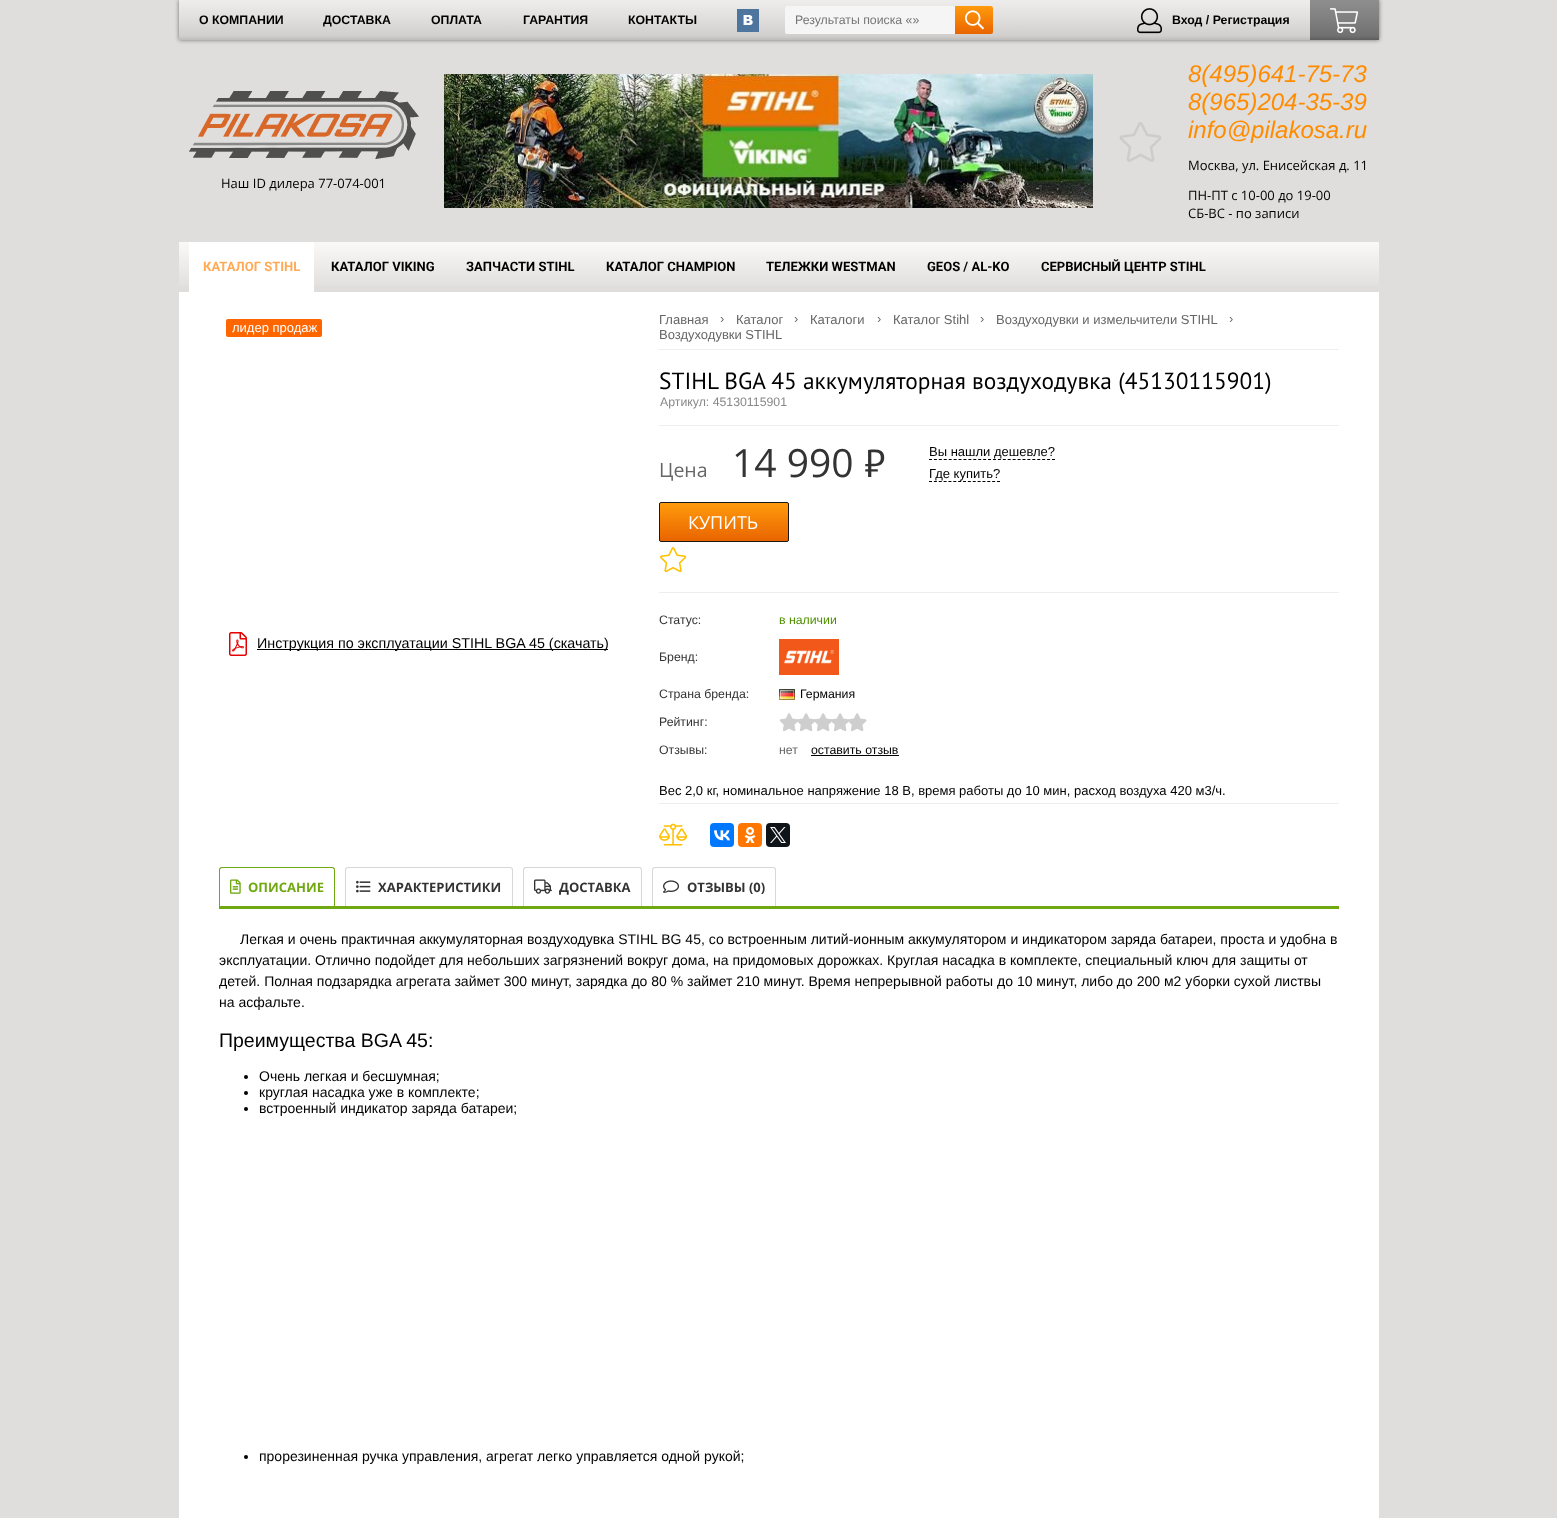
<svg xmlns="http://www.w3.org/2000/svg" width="1557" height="1518">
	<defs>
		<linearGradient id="g1" gradientUnits="userSpaceOnUse" x1="779" y1="0" x2="779" y2="40"><stop offset="0" stop-color="#EEEDEC" /><stop offset="0.5" stop-color="#DFDEDD" /><stop offset="0.9" stop-color="#D0CFCE" /><stop offset="1" stop-color="#BDBCBB" /></linearGradient>
		<linearGradient id="g2" gradientUnits="userSpaceOnUse" x1="974" y1="6" x2="974" y2="34"><stop offset="0" stop-color="#FF9B0C" /><stop offset="1" stop-color="#E96400" /></linearGradient>
		<linearGradient id="g3" gradientUnits="userSpaceOnUse" x1="1345" y1="0" x2="1345" y2="40"><stop offset="0" stop-color="#8E8E8E" /><stop offset="0.5" stop-color="#7F7F7F" /><stop offset="0.9" stop-color="#707070" /><stop offset="1" stop-color="#5D5D5D" /></linearGradient>
		<linearGradient id="g4" gradientUnits="userSpaceOnUse" x1="779" y1="242" x2="779" y2="292"><stop offset="0" stop-color="#FAF9F8" /><stop offset="1" stop-color="#DEDDDC" /></linearGradient>
		<clipPath id="clip1"><rect x="659" y="502" width="130" height="40" rx="2" /></clipPath>
		<linearGradient id="g5" gradientUnits="userSpaceOnUse" x1="724" y1="503" x2="724" y2="541"><stop offset="0" stop-color="#FF9B0C" /><stop offset="1" stop-color="#E96400" /></linearGradient>
	</defs>
	<rect width="100%" height="100%" fill="#DFDEDD" />
	<rect x="179" y="0" width="1200" height="40" fill="#000000" fill-opacity="0.5" filter="blur(2px)" />
	<rect x="179" y="0" width="1131" height="40" fill="url(#g1)" />
	<g font-family="Liberation Sans" font-size="12.3" font-weight="700" fill="#000000">
		<text x="199" y="24">О КОМПАНИИ</text>
		<text x="323" y="24">ДОСТАВКА</text>
		<text x="431" y="24">ОПЛАТА</text>
		<text x="523" y="24">ГАРАНТИЯ</text>
		<text x="628" y="24">КОНТАКТЫ</text>
	</g>
	<image x="737" y="9" width="22" height="23" href="assets/img1.png" />
	<path d="M787 6H955V34H787C786 34 785 33 785 32V8C785 7 786 6 787 6Z" fill="#F5F5F5" />
	<text x="795" y="24" font-family="Liberation Sans" font-size="12.3" fill="#757575">Результаты поиска «»</text>
	<path d="M955 6H991C992 6 993 7 993 8V32C993 33 992 34 991 34H955Z" fill="url(#g2)" />
	<image x="965" y="10" width="19" height="20" href="assets/img2.png" />
	<image x="1137" y="8" width="25" height="26" href="assets/img3.png" />
	<text x="1172" y="24" font-family="Liberation Sans" font-size="12.3" font-weight="700" fill="#000000">Вход / Регистрация</text>
	<rect x="1310" y="0" width="69" height="40" fill="url(#g3)" />
	<image x="1330" y="8" width="29" height="26" href="assets/img4.png" />
	<image x="444" y="74" width="649" height="134" href="assets/img5.png" />
	<image x="1119" y="122" width="43" height="40" href="assets/img6.png" />
	<g font-family="Liberation Sans" font-size="24" font-style="italic" fill="#FF8C00">
		<text x="1188" y="82">8(495)641-75-73</text>
		<text x="1188" y="110">8(965)204-35-39</text>
		<text x="1188" y="138">info@pilakosa.ru</text>
	</g>
	<g font-family="Open Sans" font-size="13" fill="#000000">
		<text x="1188" y="170">Москва, ул. Енисейская д. 11</text>
		<text x="1188" y="200">ПН-ПТ с 10-00 до 19-00</text>
		<text x="1188" y="218">СБ-ВС - по записи</text>
	</g>
	<image x="189" y="91" width="230" height="68" href="assets/img7.png" />
	<text x="221" y="188" font-family="Open Sans" font-size="13" fill="#000000">Наш ID дилера 77-074-001</text>
	<rect x="179" y="242" width="1200" height="44" fill="url(#g4)" />
	<rect x="189" y="242" width="125" height="50" fill="#FFFFFF" />
	<text x="203" y="271" font-family="Roboto" font-size="13" font-weight="700" fill="#FFAA56">КАТАЛОГ STIHL</text>
	<g font-family="Roboto" font-size="13" font-weight="700" fill="#000000">
		<text x="331" y="271">КАТАЛОГ VIKING</text>
		<text x="466" y="271">ЗАПЧАСТИ STIHL</text>
		<text x="606" y="271">КАТАЛОГ CHAMPION</text>
		<text x="766" y="271">ТЕЛЕЖКИ WESTMAN</text>
		<text x="927" y="271">GEOS / AL-KO</text>
		<text x="1041" y="271">СЕРВИСНЫЙ ЦЕНТР STIHL</text>
	</g>
	<rect x="179" y="292" width="1200" height="1226" fill="#FFFFFF" />
	<rect x="226" y="319" width="96" height="18" rx="2" fill="#FF6600" />
	<text x="232" y="332" font-family="Liberation Sans" font-size="13" fill="#FFFFFF">лидер продаж</text>
	<image x="229" y="632" width="18" height="24" href="assets/img8.png" />
	<rect x="257" y="649" width="351" height="1" fill="#000000" />
	<text x="257" y="648" font-family="Liberation Sans" font-size="14.3" fill="#000000">Инструкция по эксплуатации STIHL BGA 45 (скачать)</text>
	<rect x="659" y="349" width="680" height="1" fill="#EEEEEE" />
	<g font-family="Liberation Sans" font-size="13" fill="#666666">
		<text x="659" y="324">Главная</text>
		<text x="720" y="323">›</text>
		<text x="736" y="324">Каталог</text>
		<text x="794" y="323">›</text>
		<text x="810" y="324">Каталоги</text>
		<text x="877" y="323">›</text>
		<text x="893" y="324">Каталог Stihl</text>
		<text x="980" y="323">›</text>
		<text x="996" y="324">Воздуходувки и измельчители STIHL</text>
		<text x="1229" y="323">›</text>
		<text x="659" y="339">Воздуходувки STIHL</text>
	</g>
	<rect x="659" y="425" width="680" height="1" fill="#EEEEEE" />
	<text x="659" y="389" font-family="PT Sans" font-size="23.4" fill="#000000">STIHL BGA 45 аккумуляторная воздуходувка (45130115901)</text>
	<text x="660" y="406" font-family="Liberation Sans" font-size="12.3" fill="#888888">Артикул: 45130115901</text>
	<text x="659" y="477" font-family="Open Sans" font-size="19.5" fill="#666666">Цена</text>
	<text x="732" y="477" font-family="Open Sans" font-size="39" fill="#333333">14 990</text>
	<text x="864" y="477" font-family="PT Sans" font-size="39" fill="#333333">₽</text>
	<text x="929" y="456" font-family="Liberation Sans" font-size="13" fill="#000000">Вы нашли дешевле?</text>
	<path d="M929 459.5H1055" fill="none" stroke="#000000" stroke-dasharray="3 1.92" />
	<text x="929" y="478" font-family="Liberation Sans" font-size="13" fill="#000000">Где купить?</text>
	<path d="M929 481.5H1000" fill="none" stroke="#000000" stroke-dasharray="3 1.86" />
	<g clip-path="url(#clip1)">
		<rect x="659" y="503" width="130" height="38" fill="url(#g5)" />
	</g>
	<rect x="659.5" y="502.5" width="129" height="39" rx="1.5" fill="none" stroke="#191919" />
	<text x="688" y="529" font-family="Open Sans" font-size="18" fill="#FFFFFF">КУПИТЬ</text>
	<image x="660" y="547" width="27" height="26" href="assets/img9.png" />
	<rect x="659" y="592" width="680" height="1" fill="#EEEEEE" />
	<text x="659" y="624" font-family="Liberation Sans" font-size="12.3" fill="#333333">Статус:</text>
	<text x="779" y="624" font-family="Liberation Sans" font-size="12.3" fill="#4F8F00">в наличии</text>
	<text x="659" y="661" font-family="Liberation Sans" font-size="12.3" fill="#333333">Бренд:</text>
	<image x="779" y="639" width="60" height="36" href="assets/img10.png" />
	<text x="659" y="698" font-family="Liberation Sans" font-size="12.3" fill="#333333">Страна бренда:</text>
	<image x="779" y="689" width="16" height="11" href="assets/img11.png" />
	<text x="800" y="698" font-family="Liberation Sans" font-size="12.3" fill="#000000">Германия</text>
	<text x="659" y="726" font-family="Liberation Sans" font-size="12.3" fill="#333333">Рейтинг:</text>
	<image x="779" y="713" width="20" height="18" href="assets/img12.png" />
	<image x="797" y="713" width="19" height="18" href="assets/img13.png" />
	<image x="814" y="713" width="19" height="18" href="assets/img13.png" />
	<image x="831" y="713" width="19" height="18" href="assets/img13.png" />
	<image x="848" y="713" width="19" height="18" href="assets/img13.png" />
	<text x="659" y="754" font-family="Liberation Sans" font-size="12.3" fill="#333333">Отзывы:</text>
	<text x="779" y="754" font-family="Liberation Sans" font-size="12.3" fill="#666666">нет</text>
	<text x="811" y="754" font-family="Liberation Sans" font-size="12.3" fill="#000000">оставить отзыв</text>
	<rect x="811" y="755" width="88" height="1" fill="#000000" />
	<text x="659" y="795" font-family="Liberation Sans" font-size="13" fill="#000000">Вес 2,0 кг, номинальное напряжение 18 В, время работы до 10 мин, расход воздуха 420 м3/ч.</text>
	<rect x="659" y="803" width="680" height="1" fill="#EEEEEE" />
	<image x="659" y="823" width="29" height="23" href="assets/img14.png" />
	<rect x="710" y="823" width="24" height="24" rx="4" fill="#0077FF" />
	<image x="714" y="830" width="16" height="11" href="assets/img15.png" />
	<rect x="738" y="823" width="24" height="24" rx="4" fill="#FF7700" />
	<image x="744" y="827" width="12" height="16" href="assets/img16.png" />
	<rect x="766" y="823" width="24" height="24" rx="4" fill="#0F1419" />
	<image x="770" y="827" width="16" height="16" href="assets/img17.png" />
	<rect x="219" y="906" width="1120" height="3" fill="#6FA810" />
	<path d="M222 867H332C334 867 335 868 335 870V906H219V870C219 868 220 867 222 867ZM222 868H332C333 868 334 869 334 870V906H220V870C220 869 221 868 222 868Z" fill="#6FA810" fill-rule="evenodd" />
	<image x="230" y="879" width="11" height="15" href="assets/img18.png" />
	<text x="248" y="892" font-family="Open Sans" font-size="13" font-weight="700" fill="#6FA810">ОПИСАНИЕ</text>
	<path d="M348 867H510C512 867 513 868 513 870V906H345V870C345 868 346 867 348 867ZM348 868H510C511 868 512 869 512 870V906H346V870C346 869 347 868 348 868Z" fill="#D7D7D7" fill-rule="evenodd" />
	<image x="356" y="880" width="15" height="13" href="assets/img19.png" />
	<text x="378" y="892" font-family="Open Sans" font-size="13" font-weight="700" fill="#333333">ХАРАКТЕРИСТИКИ</text>
	<path d="M526 867H639C641 867 642 868 642 870V906H523V870C523 868 524 867 526 867ZM526 868H639C640 868 641 869 641 870V906H524V870C524 869 525 868 526 868Z" fill="#D7D7D7" fill-rule="evenodd" />
	<image x="534" y="879" width="18" height="15" href="assets/img20.png" />
	<text x="559" y="892" font-family="Open Sans" font-size="13" font-weight="700" fill="#333333">ДОСТАВКА</text>
	<path d="M655 867H773C775 867 776 868 776 870V906H652V870C652 868 653 867 655 867ZM655 868H773C774 868 775 869 775 870V906H653V870C653 869 654 868 655 868Z" fill="#D7D7D7" fill-rule="evenodd" />
	<image x="663" y="880" width="17" height="13" href="assets/img21.png" />
	<text x="687" y="892" font-family="Open Sans" font-size="13" font-weight="700" fill="#333333">ОТЗЫВЫ (0)</text>
	<g font-family="Liberation Sans" font-size="14" fill="#000000">
		<text x="240" y="944">Легкая и очень практичная аккумуляторная воздуходувка STIHL BG 45, со встроенным литий-ионным аккумулятором и индикатором заряда батареи, проста и удобна в</text>
		<text x="219" y="965">эксплуатации. Отлично подойдет для небольших загрязнений вокруг дома, на придомовых дорожках. Круглая насадка в комплекте, специальный ключ для защиты от</text>
		<text x="219" y="986">детей. Полная подзарядка агрегата займет 300 минут, зарядка до 80 % займет 210 минут. Время непрерывной работы до 10 минут, либо до 200 м2 уборки сухой листвы</text>
		<text x="219" y="1007">на асфальте.</text>
	</g>
	<text x="219" y="1047" font-family="Liberation Sans" font-size="19.5" fill="#000000">Преимущества BGA 45:</text>
	<circle cx="246" cy="1077" r="2" fill="#000000" />
	<text x="259" y="1081" font-family="Liberation Sans" font-size="14" fill="#000000">Очень легкая и бесшумная;</text>
	<circle cx="246" cy="1093" r="2" fill="#000000" />
	<text x="259" y="1097" font-family="Liberation Sans" font-size="14" fill="#000000">круглая насадка уже в комплекте;</text>
	<circle cx="246" cy="1109" r="2" fill="#000000" />
	<text x="259" y="1113" font-family="Liberation Sans" font-size="14" fill="#000000">встроенный индикатор заряда батареи;</text>
	<circle cx="246" cy="1457" r="2" fill="#000000" />
	<text x="259" y="1461" font-family="Liberation Sans" font-size="14" fill="#000000">прорезиненная ручка управления, агрегат легко управляется одной рукой;</text>
</svg>
